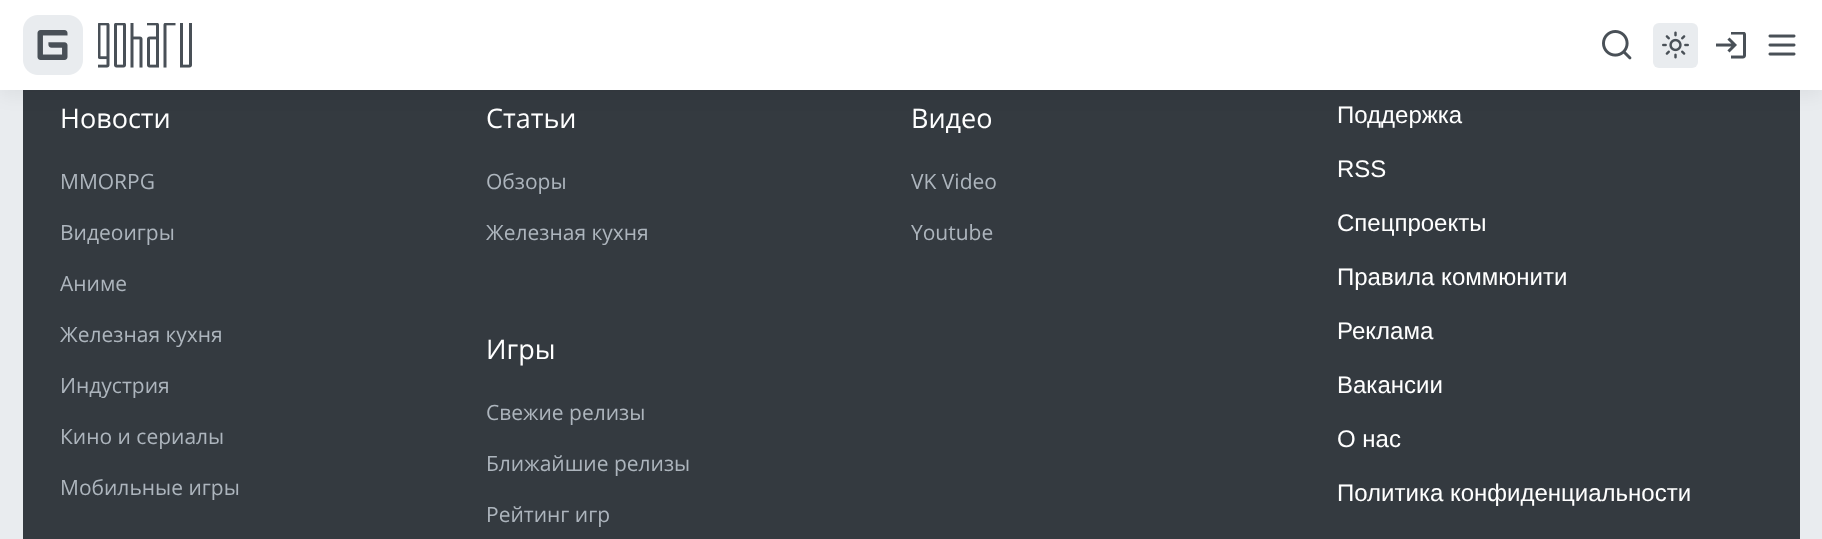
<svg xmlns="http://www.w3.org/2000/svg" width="1822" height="539">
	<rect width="100%" height="100%" fill="#E9ECEF" />
	<rect x="23" y="90" width="1777" height="449" fill="#343A40" />
	<rect x="0" y="6" width="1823" height="90" fill="#000000" fill-opacity="0.05" filter="blur(9px)" />
	<rect x="0" y="0" width="1822" height="90" fill="#FFFFFF" />
	<image x="23" y="15" width="60" height="60" href="assets/img1.png" />
	<image x="98" y="23" width="94" height="45" href="assets/img2.png" />
	<image x="1602" y="30" width="30" height="30" href="assets/img3.png" />
	<rect x="1653" y="23" width="45" height="45" rx="6" fill="#E9ECEF" />
	<image x="1662" y="31" width="27" height="28" href="assets/img4.png" />
	<image x="1716" y="32" width="30" height="27" href="assets/img5.png" />
	<image x="1768" y="34" width="28" height="22" href="assets/img6.png" />
	<text x="60" y="128" font-family="Open Sans" font-size="27" fill="#FFFFFF">Новости</text>
	<g font-family="Open Sans" font-size="21" fill="#ADB5BD">
		<text x="60" y="189">MMORPG</text>
		<text x="60" y="240">Видеоигры</text>
		<text x="60" y="291">Аниме</text>
		<text x="60" y="342">Железная кухня</text>
		<text x="60" y="393">Индустрия</text>
		<text x="60" y="444">Кино и сериалы</text>
		<text x="60" y="495">Мобильные игры</text>
	</g>
	<text x="486" y="128" font-family="Open Sans" font-size="27" fill="#FFFFFF">Статьи</text>
	<g font-family="Open Sans" font-size="21" fill="#ADB5BD">
		<text x="486" y="189">Обзоры</text>
		<text x="486" y="240">Железная кухня</text>
	</g>
	<text x="911" y="128" font-family="Open Sans" font-size="27" fill="#FFFFFF">Видео</text>
	<g font-family="Open Sans" font-size="21" fill="#ADB5BD">
		<text x="911" y="189">VK Video</text>
		<text x="911" y="240">Youtube</text>
	</g>
	<g font-family="Liberation Sans" font-size="24" fill="#FFFFFF">
		<text x="1337" y="123">Поддержка</text>
		<text x="1337" y="177">RSS</text>
		<text x="1337" y="231">Спецпроекты</text>
		<text x="1337" y="285">Правила коммюнити</text>
		<text x="1337" y="339">Реклама</text>
		<text x="1337" y="393">Вакансии</text>
		<text x="1337" y="447">О нас</text>
		<text x="1337" y="501">Политика конфиденциальности</text>
	</g>
	<text x="486" y="359" font-family="Open Sans" font-size="27" fill="#FFFFFF">Игры</text>
	<g font-family="Open Sans" font-size="21" fill="#ADB5BD">
		<text x="486" y="420">Свежие релизы</text>
		<text x="486" y="471">Ближайшие релизы</text>
		<text x="486" y="522">Рейтинг игр</text>
	</g>
</svg>
